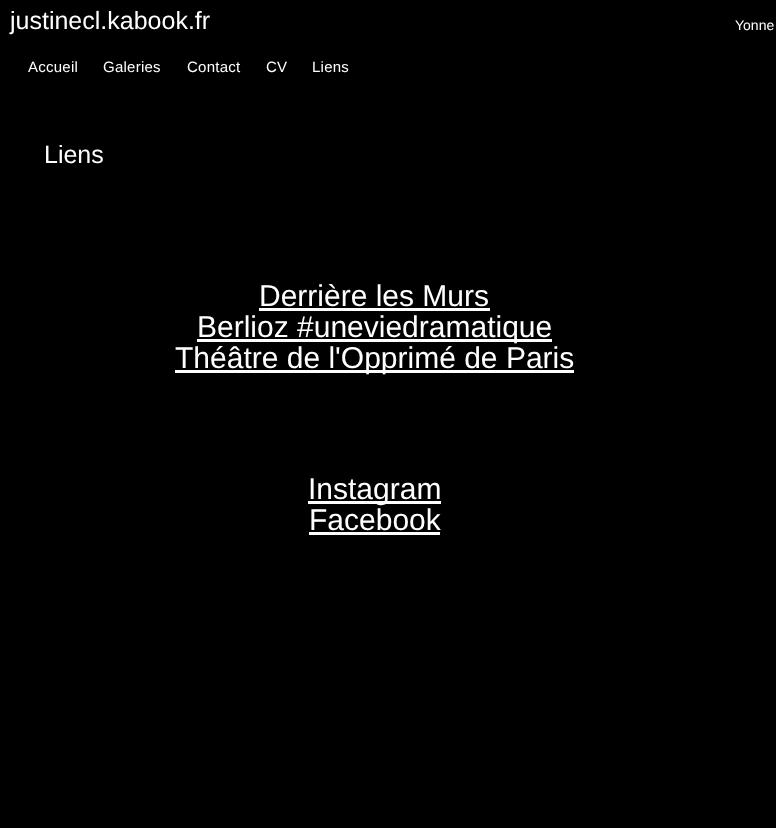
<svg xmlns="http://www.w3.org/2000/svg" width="776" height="828">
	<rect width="100%" height="100%" fill="#000000" />
	<text x="10" y="29" font-family="Liberation Sans" font-size="25" fill="#FFFFFF">justinecl.kabook.fr</text>
	<text x="735" y="30" font-family="Liberation Sans" font-size="14" fill="#FFFFFF">Yonne</text>
	<g font-family="Liberation Sans" font-size="15" letter-spacing="0.25" fill="#FFFFFF">
		<text x="28" y="72">Accueil</text>
		<text x="103" y="72">Galeries</text>
		<text x="187" y="72">Contact</text>
		<text x="266" y="72">CV</text>
		<text x="312" y="72">Liens</text>
	</g>
	<text x="44" y="163" font-family="Liberation Sans" font-size="25" fill="#FFFFFF">Liens</text>
	<text x="259" y="306" font-family="Liberation Sans" font-size="30" fill="#FFFFFF">Derrière les Murs</text>
	<rect x="259" y="308" width="231" height="3" fill="#FFFFFF" />
	<rect x="197" y="339" width="355" height="3" fill="#FFFFFF" />
	<text x="197" y="337" font-family="Liberation Sans" font-size="30" fill="#FFFFFF">Berlioz #uneviedramatique</text>
	<rect x="175" y="370" width="399" height="3" fill="#FFFFFF" />
	<text x="175" y="368" font-family="Liberation Sans" font-size="30" fill="#FFFFFF">Théâtre de l'Opprimé de Paris</text>
	<rect x="308" y="501" width="133" height="3" fill="#FFFFFF" />
	<g font-family="Liberation Sans" font-size="30" fill="#FFFFFF">
		<text x="308" y="499">Instagram</text>
		<text x="309" y="530">Facebook</text>
	</g>
	<rect x="309" y="532" width="131" height="3" fill="#FFFFFF" />
</svg>
